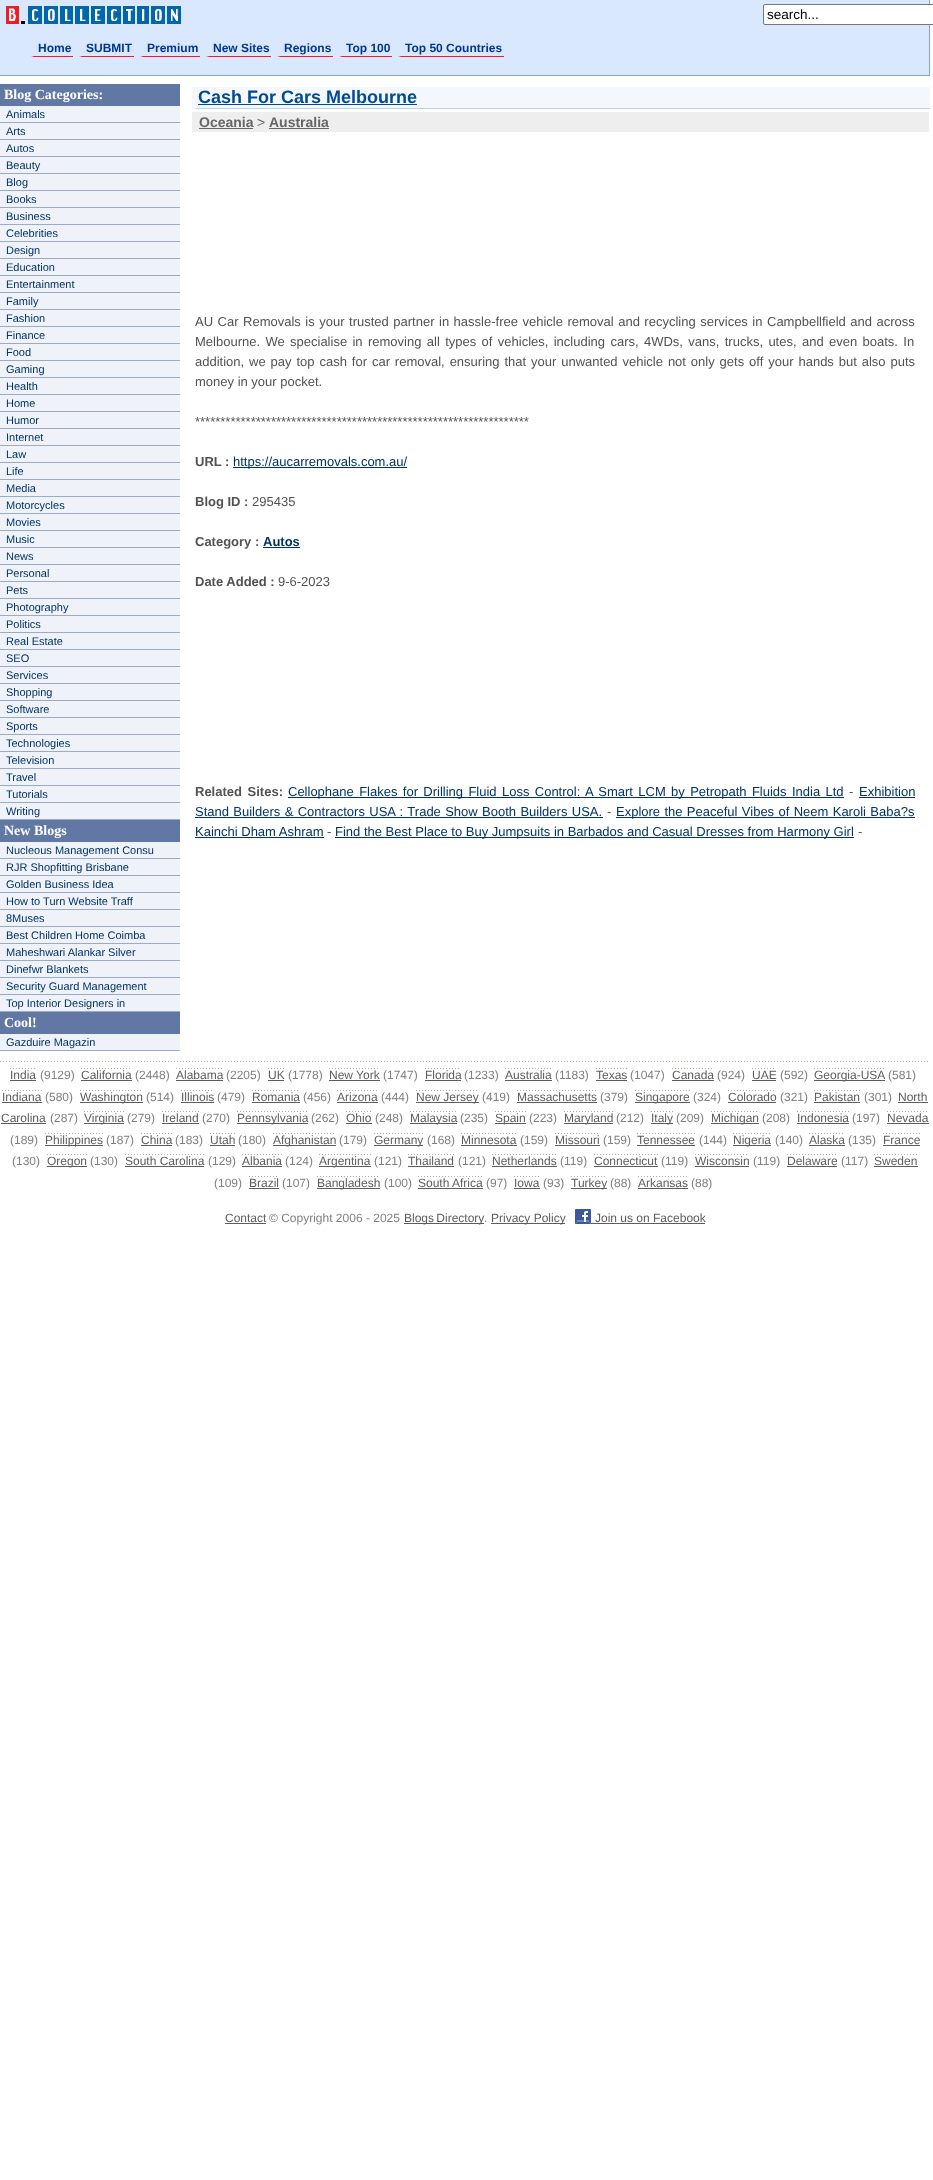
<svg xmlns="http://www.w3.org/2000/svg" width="933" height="2180">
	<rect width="100%" height="100%" fill="#FFFFFF" />
	<rect x="0" y="0" width="929" height="75" fill="#D9E7FF" />
	<image x="6" y="6" width="175" height="18" href="assets/img1.png" />
	<rect x="929" y="0" width="1" height="76" fill="#79A7E2" />
	<rect x="763.5" y="4.5" width="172" height="20" rx="1.5" fill="#FFFFFF" stroke="#767676" />
	<text x="767" y="19" font-family="Liberation Sans" font-size="13.5" fill="#000000">search...</text>
	<rect x="0" y="75" width="930" height="1" fill="#79A7E2" />
	<text x="38" y="52" font-family="Liberation Sans" font-size="12" font-weight="700" fill="#00368F">Home</text>
	<path d="M73 57H30L34 56H73Z" fill="#EE1D24" />
	<path d="M30 57V38H34V56Z" fill="#D9E7FF" />
	<text x="86" y="52" font-family="Liberation Sans" font-size="12" font-weight="700" fill="#00368F">SUBMIT</text>
	<path d="M134 57H78L82 56H134Z" fill="#EE1D24" />
	<path d="M78 57V38H82V56Z" fill="#D9E7FF" />
	<text x="147" y="52" font-family="Liberation Sans" font-size="12" font-weight="700" fill="#00368F">Premium</text>
	<path d="M200 57H139L143 56H200Z" fill="#EE1D24" />
	<path d="M139 57V38H143V56Z" fill="#D9E7FF" />
	<text x="213" y="52" font-family="Liberation Sans" font-size="12" font-weight="700" fill="#00368F">New Sites</text>
	<path d="M271 57H205L209 56H271Z" fill="#EE1D24" />
	<path d="M205 57V38H209V56Z" fill="#D9E7FF" />
	<text x="284" y="52" font-family="Liberation Sans" font-size="12" font-weight="700" fill="#00368F">Regions</text>
	<path d="M333 57H276L280 56H333Z" fill="#EE1D24" />
	<path d="M276 57V38H280V56Z" fill="#D9E7FF" />
	<text x="346" y="52" font-family="Liberation Sans" font-size="12" font-weight="700" fill="#00368F">Top 100</text>
	<path d="M392 57H338L342 56H392Z" fill="#EE1D24" />
	<path d="M338 57V38H342V56Z" fill="#D9E7FF" />
	<text x="405" y="52" font-family="Liberation Sans" font-size="12" font-weight="700" fill="#00368F">Top 50 Countries</text>
	<path d="M504 57H397L401 56H504Z" fill="#EE1D24" />
	<path d="M397 57V38H401V56Z" fill="#D9E7FF" />
	<rect x="0" y="84" width="180" height="22" fill="#6177A4" />
	<text x="4" y="99" font-family="Liberation Serif" font-size="14" font-weight="700" fill="#FFFFFF">Blog Categories:</text>
	<rect x="0" y="106" width="180" height="16" fill="#EFF2F9" />
	<rect x="0" y="122" width="180" height="1" fill="#9CAAC5" />
	<text x="6" y="118" font-family="Liberation Sans" font-size="11" fill="#003366">Animals</text>
	<rect x="0" y="123" width="180" height="16" fill="#EFF2F9" />
	<rect x="0" y="139" width="180" height="1" fill="#9CAAC5" />
	<text x="6" y="135" font-family="Liberation Sans" font-size="11" fill="#003366">Arts</text>
	<rect x="0" y="140" width="180" height="16" fill="#EFF2F9" />
	<rect x="0" y="156" width="180" height="1" fill="#9CAAC5" />
	<text x="6" y="152" font-family="Liberation Sans" font-size="11" fill="#003366">Autos</text>
	<rect x="0" y="157" width="180" height="16" fill="#EFF2F9" />
	<rect x="0" y="173" width="180" height="1" fill="#9CAAC5" />
	<text x="6" y="169" font-family="Liberation Sans" font-size="11" fill="#003366">Beauty</text>
	<rect x="0" y="174" width="180" height="16" fill="#EFF2F9" />
	<rect x="0" y="190" width="180" height="1" fill="#9CAAC5" />
	<text x="6" y="186" font-family="Liberation Sans" font-size="11" fill="#003366">Blog</text>
	<rect x="0" y="191" width="180" height="16" fill="#EFF2F9" />
	<rect x="0" y="207" width="180" height="1" fill="#9CAAC5" />
	<text x="6" y="203" font-family="Liberation Sans" font-size="11" fill="#003366">Books</text>
	<rect x="0" y="208" width="180" height="16" fill="#EFF2F9" />
	<rect x="0" y="224" width="180" height="1" fill="#9CAAC5" />
	<text x="6" y="220" font-family="Liberation Sans" font-size="11" fill="#003366">Business</text>
	<rect x="0" y="225" width="180" height="16" fill="#EFF2F9" />
	<rect x="0" y="241" width="180" height="1" fill="#9CAAC5" />
	<text x="6" y="237" font-family="Liberation Sans" font-size="11" fill="#003366">Celebrities</text>
	<rect x="0" y="242" width="180" height="16" fill="#EFF2F9" />
	<rect x="0" y="258" width="180" height="1" fill="#9CAAC5" />
	<text x="6" y="254" font-family="Liberation Sans" font-size="11" fill="#003366">Design</text>
	<rect x="0" y="259" width="180" height="16" fill="#EFF2F9" />
	<rect x="0" y="275" width="180" height="1" fill="#9CAAC5" />
	<text x="6" y="271" font-family="Liberation Sans" font-size="11" fill="#003366">Education</text>
	<rect x="0" y="276" width="180" height="16" fill="#EFF2F9" />
	<rect x="0" y="292" width="180" height="1" fill="#9CAAC5" />
	<text x="6" y="288" font-family="Liberation Sans" font-size="11" fill="#003366">Entertainment</text>
	<rect x="0" y="293" width="180" height="16" fill="#EFF2F9" />
	<rect x="0" y="309" width="180" height="1" fill="#9CAAC5" />
	<text x="6" y="305" font-family="Liberation Sans" font-size="11" fill="#003366">Family</text>
	<rect x="0" y="310" width="180" height="16" fill="#EFF2F9" />
	<rect x="0" y="326" width="180" height="1" fill="#9CAAC5" />
	<text x="6" y="322" font-family="Liberation Sans" font-size="11" fill="#003366">Fashion</text>
	<rect x="0" y="327" width="180" height="16" fill="#EFF2F9" />
	<rect x="0" y="343" width="180" height="1" fill="#9CAAC5" />
	<text x="6" y="339" font-family="Liberation Sans" font-size="11" fill="#003366">Finance</text>
	<rect x="0" y="344" width="180" height="16" fill="#EFF2F9" />
	<rect x="0" y="360" width="180" height="1" fill="#9CAAC5" />
	<text x="6" y="356" font-family="Liberation Sans" font-size="11" fill="#003366">Food</text>
	<rect x="0" y="361" width="180" height="16" fill="#EFF2F9" />
	<rect x="0" y="377" width="180" height="1" fill="#9CAAC5" />
	<text x="6" y="373" font-family="Liberation Sans" font-size="11" fill="#003366">Gaming</text>
	<rect x="0" y="378" width="180" height="16" fill="#EFF2F9" />
	<rect x="0" y="394" width="180" height="1" fill="#9CAAC5" />
	<text x="6" y="390" font-family="Liberation Sans" font-size="11" fill="#003366">Health</text>
	<rect x="0" y="395" width="180" height="16" fill="#EFF2F9" />
	<rect x="0" y="411" width="180" height="1" fill="#9CAAC5" />
	<text x="6" y="407" font-family="Liberation Sans" font-size="11" fill="#003366">Home</text>
	<rect x="0" y="412" width="180" height="16" fill="#EFF2F9" />
	<rect x="0" y="428" width="180" height="1" fill="#9CAAC5" />
	<text x="6" y="424" font-family="Liberation Sans" font-size="11" fill="#003366">Humor</text>
	<rect x="0" y="429" width="180" height="16" fill="#EFF2F9" />
	<rect x="0" y="445" width="180" height="1" fill="#9CAAC5" />
	<text x="6" y="441" font-family="Liberation Sans" font-size="11" fill="#003366">Internet</text>
	<rect x="0" y="446" width="180" height="16" fill="#EFF2F9" />
	<rect x="0" y="462" width="180" height="1" fill="#9CAAC5" />
	<text x="6" y="458" font-family="Liberation Sans" font-size="11" fill="#003366">Law</text>
	<rect x="0" y="463" width="180" height="16" fill="#EFF2F9" />
	<rect x="0" y="479" width="180" height="1" fill="#9CAAC5" />
	<text x="6" y="475" font-family="Liberation Sans" font-size="11" fill="#003366">Life</text>
	<rect x="0" y="480" width="180" height="16" fill="#EFF2F9" />
	<rect x="0" y="496" width="180" height="1" fill="#9CAAC5" />
	<text x="6" y="492" font-family="Liberation Sans" font-size="11" fill="#003366">Media</text>
	<rect x="0" y="497" width="180" height="16" fill="#EFF2F9" />
	<rect x="0" y="513" width="180" height="1" fill="#9CAAC5" />
	<text x="6" y="509" font-family="Liberation Sans" font-size="11" fill="#003366">Motorcycles</text>
	<rect x="0" y="514" width="180" height="16" fill="#EFF2F9" />
	<rect x="0" y="530" width="180" height="1" fill="#9CAAC5" />
	<text x="6" y="526" font-family="Liberation Sans" font-size="11" fill="#003366">Movies</text>
	<rect x="0" y="531" width="180" height="16" fill="#EFF2F9" />
	<rect x="0" y="547" width="180" height="1" fill="#9CAAC5" />
	<text x="6" y="543" font-family="Liberation Sans" font-size="11" fill="#003366">Music</text>
	<rect x="0" y="548" width="180" height="16" fill="#EFF2F9" />
	<rect x="0" y="564" width="180" height="1" fill="#9CAAC5" />
	<text x="6" y="560" font-family="Liberation Sans" font-size="11" fill="#003366">News</text>
	<rect x="0" y="565" width="180" height="16" fill="#EFF2F9" />
	<rect x="0" y="581" width="180" height="1" fill="#9CAAC5" />
	<text x="6" y="577" font-family="Liberation Sans" font-size="11" fill="#003366">Personal</text>
	<rect x="0" y="582" width="180" height="16" fill="#EFF2F9" />
	<rect x="0" y="598" width="180" height="1" fill="#9CAAC5" />
	<text x="6" y="594" font-family="Liberation Sans" font-size="11" fill="#003366">Pets</text>
	<rect x="0" y="599" width="180" height="16" fill="#EFF2F9" />
	<rect x="0" y="615" width="180" height="1" fill="#9CAAC5" />
	<text x="6" y="611" font-family="Liberation Sans" font-size="11" fill="#003366">Photography</text>
	<rect x="0" y="616" width="180" height="16" fill="#EFF2F9" />
	<rect x="0" y="632" width="180" height="1" fill="#9CAAC5" />
	<text x="6" y="628" font-family="Liberation Sans" font-size="11" fill="#003366">Politics</text>
	<rect x="0" y="633" width="180" height="16" fill="#EFF2F9" />
	<rect x="0" y="649" width="180" height="1" fill="#9CAAC5" />
	<text x="6" y="645" font-family="Liberation Sans" font-size="11" fill="#003366">Real Estate</text>
	<rect x="0" y="650" width="180" height="16" fill="#EFF2F9" />
	<rect x="0" y="666" width="180" height="1" fill="#9CAAC5" />
	<text x="6" y="662" font-family="Liberation Sans" font-size="11" fill="#003366">SEO</text>
	<rect x="0" y="667" width="180" height="16" fill="#EFF2F9" />
	<rect x="0" y="683" width="180" height="1" fill="#9CAAC5" />
	<text x="6" y="679" font-family="Liberation Sans" font-size="11" fill="#003366">Services</text>
	<rect x="0" y="684" width="180" height="16" fill="#EFF2F9" />
	<rect x="0" y="700" width="180" height="1" fill="#9CAAC5" />
	<text x="6" y="696" font-family="Liberation Sans" font-size="11" fill="#003366">Shopping</text>
	<rect x="0" y="701" width="180" height="16" fill="#EFF2F9" />
	<rect x="0" y="717" width="180" height="1" fill="#9CAAC5" />
	<text x="6" y="713" font-family="Liberation Sans" font-size="11" fill="#003366">Software</text>
	<rect x="0" y="718" width="180" height="16" fill="#EFF2F9" />
	<rect x="0" y="734" width="180" height="1" fill="#9CAAC5" />
	<text x="6" y="730" font-family="Liberation Sans" font-size="11" fill="#003366">Sports</text>
	<rect x="0" y="735" width="180" height="16" fill="#EFF2F9" />
	<rect x="0" y="751" width="180" height="1" fill="#9CAAC5" />
	<text x="6" y="747" font-family="Liberation Sans" font-size="11" fill="#003366">Technologies</text>
	<rect x="0" y="752" width="180" height="16" fill="#EFF2F9" />
	<rect x="0" y="768" width="180" height="1" fill="#9CAAC5" />
	<text x="6" y="764" font-family="Liberation Sans" font-size="11" fill="#003366">Television</text>
	<rect x="0" y="769" width="180" height="16" fill="#EFF2F9" />
	<rect x="0" y="785" width="180" height="1" fill="#9CAAC5" />
	<text x="6" y="781" font-family="Liberation Sans" font-size="11" fill="#003366">Travel</text>
	<rect x="0" y="786" width="180" height="16" fill="#EFF2F9" />
	<rect x="0" y="802" width="180" height="1" fill="#9CAAC5" />
	<text x="6" y="798" font-family="Liberation Sans" font-size="11" fill="#003366">Tutorials</text>
	<rect x="0" y="803" width="180" height="16" fill="#EFF2F9" />
	<rect x="0" y="819" width="180" height="1" fill="#9CAAC5" />
	<text x="6" y="815" font-family="Liberation Sans" font-size="11" fill="#003366">Writing</text>
	<rect x="0" y="820" width="180" height="22" fill="#6177A4" />
	<text x="4" y="835" font-family="Liberation Serif" font-size="14" font-weight="700" fill="#FFFFFF">New Blogs</text>
	<rect x="0" y="842" width="180" height="16" fill="#EFF2F9" />
	<rect x="0" y="858" width="180" height="1" fill="#9CAAC5" />
	<text x="6" y="854" font-family="Liberation Sans" font-size="11" fill="#003366">Nucleous Management Consu</text>
	<rect x="0" y="859" width="180" height="16" fill="#EFF2F9" />
	<rect x="0" y="875" width="180" height="1" fill="#9CAAC5" />
	<text x="6" y="871" font-family="Liberation Sans" font-size="11" fill="#003366">RJR Shopfitting Brisbane</text>
	<rect x="0" y="876" width="180" height="16" fill="#EFF2F9" />
	<rect x="0" y="892" width="180" height="1" fill="#9CAAC5" />
	<text x="6" y="888" font-family="Liberation Sans" font-size="11" fill="#003366">Golden Business Idea</text>
	<rect x="0" y="893" width="180" height="16" fill="#EFF2F9" />
	<rect x="0" y="909" width="180" height="1" fill="#9CAAC5" />
	<text x="6" y="905" font-family="Liberation Sans" font-size="11" fill="#003366">How to Turn Website Traff</text>
	<rect x="0" y="910" width="180" height="16" fill="#EFF2F9" />
	<rect x="0" y="926" width="180" height="1" fill="#9CAAC5" />
	<text x="6" y="922" font-family="Liberation Sans" font-size="11" fill="#003366">8Muses</text>
	<rect x="0" y="927" width="180" height="16" fill="#EFF2F9" />
	<rect x="0" y="943" width="180" height="1" fill="#9CAAC5" />
	<text x="6" y="939" font-family="Liberation Sans" font-size="11" fill="#003366">Best Children Home Coimba</text>
	<rect x="0" y="944" width="180" height="16" fill="#EFF2F9" />
	<rect x="0" y="960" width="180" height="1" fill="#9CAAC5" />
	<text x="6" y="956" font-family="Liberation Sans" font-size="11" fill="#003366">Maheshwari Alankar Silver</text>
	<rect x="0" y="961" width="180" height="16" fill="#EFF2F9" />
	<rect x="0" y="977" width="180" height="1" fill="#9CAAC5" />
	<text x="6" y="973" font-family="Liberation Sans" font-size="11" fill="#003366">Dinefwr Blankets</text>
	<rect x="0" y="978" width="180" height="16" fill="#EFF2F9" />
	<rect x="0" y="994" width="180" height="1" fill="#9CAAC5" />
	<text x="6" y="990" font-family="Liberation Sans" font-size="11" fill="#003366">Security Guard Management</text>
	<rect x="0" y="995" width="180" height="16" fill="#EFF2F9" />
	<rect x="0" y="1011" width="180" height="1" fill="#9CAAC5" />
	<text x="6" y="1007" font-family="Liberation Sans" font-size="11" fill="#003366">Top Interior Designers in</text>
	<rect x="0" y="1012" width="180" height="22" fill="#6177A4" />
	<text x="4" y="1027" font-family="Liberation Serif" font-size="14" font-weight="700" fill="#FFFFFF">Cool!</text>
	<rect x="0" y="1034" width="180" height="16" fill="#EFF2F9" />
	<rect x="0" y="1050" width="180" height="1" fill="#9CAAC5" />
	<text x="6" y="1046" font-family="Liberation Sans" font-size="11" fill="#003366">Gazduire Magazin</text>
	<rect x="192" y="87" width="738" height="22" fill="#F4F7FB" />
	<path d="M930 109H192L198 108H930Z" fill="#BCD2E6" />
	<path d="M192 109V87H198V108Z" fill="#F4F7FB" />
	<text x="198" y="103" font-family="Liberation Sans" font-size="18" font-weight="700" fill="#004A95">Cash For Cars Melbourne</text>
	<rect x="198" y="104" width="219" height="1" fill="#004A95" />
	<rect x="192" y="112" width="737" height="20" fill="#EEEEEE" />
	<text x="199" y="127" font-family="Liberation Sans" font-size="14" font-weight="700" fill="#666666">Oceania</text>
	<rect x="199" y="128" width="54" height="1" fill="#666666" />
	<text x="257" y="127" font-family="Liberation Sans" font-size="14" fill="#666666">&gt;</text>
	<text x="269" y="127" font-family="Liberation Sans" font-size="14" font-weight="700" fill="#666666">Australia</text>
	<rect x="269" y="128" width="60" height="1" fill="#666666" />
	<g font-family="Liberation Sans" font-size="13" fill="#525252">
		<text x="195" y="326" word-spacing="0.9">AU Car Removals is your trusted partner in hassle-free vehicle removal and recycling services in Campbellfield and across</text>
		<text x="195" y="346" word-spacing="1.75">Melbourne. We specialise in removing all types of vehicles, including cars, 4WDs, vans, trucks, utes, and even boats. In</text>
		<text x="195" y="366" word-spacing="1.3">addition, we pay top cash for car removal, ensuring that your unwanted vehicle not only gets off your hands but also puts</text>
		<text x="195" y="386">money in your pocket.</text>
		<text x="195" y="426">******************************************************************</text>
	</g>
	<text x="195" y="466" font-family="Liberation Sans" font-size="13" font-weight="700" fill="#525252">URL :</text>
	<rect x="233" y="467" width="174" height="1" fill="#003366" />
	<text x="233" y="466" font-family="Liberation Sans" font-size="13" fill="#003366">https://aucarremovals.com.au/</text>
	<text x="195" y="506" font-family="Liberation Sans" font-size="13" font-weight="700" fill="#525252">Blog ID :</text>
	<text x="252" y="506" font-family="Liberation Sans" font-size="13" fill="#525252">295435</text>
	<text x="195" y="546" font-family="Liberation Sans" font-size="13" font-weight="700" fill="#525252">Category :</text>
	<text x="263" y="546" font-family="Liberation Sans" font-size="13" font-weight="700" fill="#003366">Autos</text>
	<rect x="263" y="547" width="37" height="1" fill="#003366" />
	<text x="195" y="586" font-family="Liberation Sans" font-size="13" font-weight="700" fill="#525252">Date Added :</text>
	<text x="278" y="586" font-family="Liberation Sans" font-size="13" fill="#525252">9-6-2023</text>
	<text x="195" y="796" word-spacing="2" font-family="Liberation Sans" font-size="13" font-weight="700" fill="#525252">Related Sites:</text>
	<rect x="288" y="797" width="556" height="1" fill="#003366" />
	<text x="288" y="796" word-spacing="1.75" font-family="Liberation Sans" font-size="13" fill="#003366">Cellophane Flakes for Drilling Fluid Loss Control: A Smart LCM by Petropath Fluids India Ltd</text>
	<text x="849" y="796" font-family="Liberation Sans" font-size="13" fill="#525252">-</text>
	<text x="859" y="796" font-family="Liberation Sans" font-size="13" fill="#003366">Exhibition</text>
	<rect x="859" y="797" width="56" height="1" fill="#003366" />
	<text x="195" y="816" word-spacing="0.75" font-family="Liberation Sans" font-size="13" fill="#003366">Stand Builders &amp; Contractors USA : Trade Show Booth Builders USA.</text>
	<rect x="195" y="817" width="408" height="1" fill="#003366" />
	<text x="607" y="816" font-family="Liberation Sans" font-size="13" fill="#525252">-</text>
	<rect x="616" y="817" width="299" height="1" fill="#003366" />
	<g font-family="Liberation Sans" font-size="13" fill="#003366">
		<text x="616" y="816" word-spacing="0.75">Explore the Peaceful Vibes of Neem Karoli Baba?s</text>
		<text x="195" y="836">Kainchi Dham Ashram</text>
	</g>
	<rect x="195" y="837" width="129" height="1" fill="#003366" />
	<text x="327" y="836" font-family="Liberation Sans" font-size="13" fill="#525252">-</text>
	<rect x="335" y="837" width="519" height="1" fill="#003366" />
	<text x="335" y="836" font-family="Liberation Sans" font-size="13" fill="#003366">Find the Best Place to Buy Jumpsuits in Barbados and Casual Dresses from Harmony Girl</text>
	<text x="858" y="836" font-family="Liberation Sans" font-size="13" fill="#525252">-</text>
	<image x="0" y="1061" width="928" height="1" href="assets/img2.png" />
	<image x="10" y="1068" width="25" height="1" href="assets/img3.png" />
	<image x="81" y="1068" width="49" height="1" href="assets/img4.png" />
	<image x="176" y="1068" width="46" height="1" href="assets/img5.png" />
	<image x="268" y="1068" width="16" height="1" href="assets/img6.png" />
	<image x="329" y="1068" width="49" height="1" href="assets/img4.png" />
	<image x="425" y="1068" width="34" height="1" href="assets/img7.png" />
	<image x="505" y="1068" width="46" height="1" href="assets/img5.png" />
	<image x="596" y="1068" width="31" height="1" href="assets/img8.png" />
	<image x="672" y="1068" width="40" height="1" href="assets/img9.png" />
	<image x="752" y="1068" width="22" height="1" href="assets/img10.png" />
	<image x="814" y="1068" width="70" height="1" href="assets/img11.png" />
	<text x="10" y="1079" font-family="Liberation Sans" font-size="12" fill="#5D5D5D">India</text>
	<rect x="10" y="1080" width="26" height="1" fill="#5D5D5D" />
	<text x="40" y="1079" font-family="Liberation Sans" font-size="12" fill="#808080">(9129)</text>
	<text x="81" y="1079" font-family="Liberation Sans" font-size="12" fill="#5D5D5D">California</text>
	<rect x="81" y="1080" width="51" height="1" fill="#5D5D5D" />
	<text x="135" y="1079" font-family="Liberation Sans" font-size="12" fill="#808080">(2448)</text>
	<text x="176" y="1079" font-family="Liberation Sans" font-size="12" fill="#5D5D5D">Alabama</text>
	<rect x="176" y="1080" width="47" height="1" fill="#5D5D5D" />
	<text x="226" y="1079" font-family="Liberation Sans" font-size="12" fill="#808080">(2205)</text>
	<text x="268" y="1079" font-family="Liberation Sans" font-size="12" fill="#5D5D5D">UK</text>
	<rect x="268" y="1080" width="16" height="1" fill="#5D5D5D" />
	<text x="288" y="1079" font-family="Liberation Sans" font-size="12" fill="#808080">(1778)</text>
	<text x="329" y="1079" font-family="Liberation Sans" font-size="12" fill="#5D5D5D">New York</text>
	<rect x="329" y="1080" width="51" height="1" fill="#5D5D5D" />
	<text x="383" y="1079" font-family="Liberation Sans" font-size="12" fill="#808080">(1747)</text>
	<text x="425" y="1079" font-family="Liberation Sans" font-size="12" fill="#5D5D5D">Florida</text>
	<rect x="425" y="1080" width="36" height="1" fill="#5D5D5D" />
	<text x="464" y="1079" font-family="Liberation Sans" font-size="12" fill="#808080">(1233)</text>
	<text x="505" y="1079" font-family="Liberation Sans" font-size="12" fill="#5D5D5D">Australia</text>
	<rect x="505" y="1080" width="47" height="1" fill="#5D5D5D" />
	<text x="555" y="1079" font-family="Liberation Sans" font-size="12" fill="#808080">(1183)</text>
	<text x="596" y="1079" font-family="Liberation Sans" font-size="12" fill="#5D5D5D">Texas</text>
	<rect x="596" y="1080" width="31" height="1" fill="#5D5D5D" />
	<text x="630" y="1079" font-family="Liberation Sans" font-size="12" fill="#808080">(1047)</text>
	<text x="672" y="1079" font-family="Liberation Sans" font-size="12" fill="#5D5D5D">Canada</text>
	<rect x="672" y="1080" width="42" height="1" fill="#5D5D5D" />
	<text x="717" y="1079" font-family="Liberation Sans" font-size="12" fill="#808080">(924)</text>
	<text x="752" y="1079" font-family="Liberation Sans" font-size="12" fill="#5D5D5D">UAE</text>
	<rect x="752" y="1080" width="24" height="1" fill="#5D5D5D" />
	<text x="780" y="1079" font-family="Liberation Sans" font-size="12" fill="#808080">(592)</text>
	<rect x="814" y="1080" width="71" height="1" fill="#5D5D5D" />
	<text x="814" y="1079" font-family="Liberation Sans" font-size="12" fill="#5D5D5D">Georgia-USA</text>
	<text x="888" y="1079" font-family="Liberation Sans" font-size="12" fill="#808080">(581)</text>
	<image x="2" y="1090" width="40" height="1" href="assets/img9.png" />
	<image x="80" y="1090" width="61" height="1" href="assets/img12.png" />
	<image x="181" y="1090" width="31" height="1" href="assets/img8.png" />
	<image x="252" y="1090" width="46" height="1" href="assets/img5.png" />
	<image x="337" y="1090" width="40" height="1" href="assets/img9.png" />
	<image x="416" y="1090" width="61" height="1" href="assets/img12.png" />
	<image x="517" y="1090" width="79" height="1" href="assets/img13.png" />
	<image x="635" y="1090" width="55" height="1" href="assets/img14.png" />
	<image x="728" y="1090" width="46" height="1" href="assets/img5.png" />
	<image x="814" y="1090" width="46" height="1" href="assets/img5.png" />
	<text x="2" y="1101" font-family="Liberation Sans" font-size="12" fill="#5D5D5D">Indiana</text>
	<rect x="2" y="1102" width="40" height="1" fill="#5D5D5D" />
	<text x="45" y="1101" font-family="Liberation Sans" font-size="12" fill="#808080">(580)</text>
	<rect x="80" y="1102" width="63" height="1" fill="#5D5D5D" />
	<text x="80" y="1101" font-family="Liberation Sans" font-size="12" fill="#5D5D5D">Washington</text>
	<text x="146" y="1101" font-family="Liberation Sans" font-size="12" fill="#808080">(514)</text>
	<text x="181" y="1101" font-family="Liberation Sans" font-size="12" fill="#5D5D5D">Illinois</text>
	<rect x="181" y="1102" width="33" height="1" fill="#5D5D5D" />
	<text x="217" y="1101" font-family="Liberation Sans" font-size="12" fill="#808080">(479)</text>
	<text x="252" y="1101" font-family="Liberation Sans" font-size="12" fill="#5D5D5D">Romania</text>
	<rect x="252" y="1102" width="48" height="1" fill="#5D5D5D" />
	<text x="303" y="1101" font-family="Liberation Sans" font-size="12" fill="#808080">(456)</text>
	<text x="337" y="1101" font-family="Liberation Sans" font-size="12" fill="#5D5D5D">Arizona</text>
	<rect x="337" y="1102" width="41" height="1" fill="#5D5D5D" />
	<text x="381" y="1101" font-family="Liberation Sans" font-size="12" fill="#808080">(444)</text>
	<rect x="416" y="1102" width="63" height="1" fill="#5D5D5D" />
	<text x="416" y="1101" font-family="Liberation Sans" font-size="12" fill="#5D5D5D">New Jersey</text>
	<text x="482" y="1101" font-family="Liberation Sans" font-size="12" fill="#808080">(419)</text>
	<text x="517" y="1101" font-family="Liberation Sans" font-size="12" fill="#5D5D5D">Massachusetts</text>
	<rect x="517" y="1102" width="80" height="1" fill="#5D5D5D" />
	<text x="600" y="1101" font-family="Liberation Sans" font-size="12" fill="#808080">(379)</text>
	<rect x="635" y="1102" width="55" height="1" fill="#5D5D5D" />
	<text x="635" y="1101" font-family="Liberation Sans" font-size="12" fill="#5D5D5D">Singapore</text>
	<text x="693" y="1101" font-family="Liberation Sans" font-size="12" fill="#808080">(324)</text>
	<text x="728" y="1101" font-family="Liberation Sans" font-size="12" fill="#5D5D5D">Colorado</text>
	<rect x="728" y="1102" width="48" height="1" fill="#5D5D5D" />
	<text x="780" y="1101" font-family="Liberation Sans" font-size="12" fill="#808080">(321)</text>
	<text x="814" y="1101" font-family="Liberation Sans" font-size="12" fill="#5D5D5D">Pakistan</text>
	<rect x="814" y="1102" width="46" height="1" fill="#5D5D5D" />
	<text x="864" y="1101" font-family="Liberation Sans" font-size="12" fill="#808080">(301)</text>
	<text x="898" y="1101" font-family="Liberation Sans" font-size="12" fill="#5D5D5D">North</text>
	<rect x="898" y="1102" width="30" height="1" fill="#5D5D5D" />
	<image x="84" y="1111" width="40" height="1" href="assets/img9.png" />
	<image x="162" y="1111" width="37" height="1" href="assets/img15.png" />
	<image x="237" y="1111" width="70" height="1" href="assets/img11.png" />
	<image x="346" y="1111" width="25" height="1" href="assets/img3.png" />
	<image x="410" y="1111" width="46" height="1" href="assets/img5.png" />
	<image x="495" y="1111" width="31" height="1" href="assets/img8.png" />
	<image x="564" y="1111" width="49" height="1" href="assets/img4.png" />
	<image x="651" y="1111" width="22" height="1" href="assets/img10.png" />
	<image x="711" y="1111" width="46" height="1" href="assets/img5.png" />
	<image x="797" y="1111" width="52" height="1" href="assets/img16.png" />
	<image x="887" y="1111" width="40" height="1" href="assets/img9.png" />
	<text x="1" y="1122" font-family="Liberation Sans" font-size="12" fill="#5D5D5D">Carolina</text>
	<rect x="1" y="1123" width="45" height="1" fill="#5D5D5D" />
	<text x="50" y="1122" font-family="Liberation Sans" font-size="12" fill="#808080">(287)</text>
	<rect x="84" y="1123" width="40" height="1" fill="#5D5D5D" />
	<text x="84" y="1122" font-family="Liberation Sans" font-size="12" fill="#5D5D5D">Virginia</text>
	<text x="127" y="1122" font-family="Liberation Sans" font-size="12" fill="#808080">(279)</text>
	<text x="162" y="1122" font-family="Liberation Sans" font-size="12" fill="#5D5D5D">Ireland</text>
	<rect x="162" y="1123" width="37" height="1" fill="#5D5D5D" />
	<text x="202" y="1122" font-family="Liberation Sans" font-size="12" fill="#808080">(270)</text>
	<rect x="237" y="1123" width="71" height="1" fill="#5D5D5D" />
	<text x="237" y="1122" font-family="Liberation Sans" font-size="12" fill="#5D5D5D">Pennsylvania</text>
	<text x="311" y="1122" font-family="Liberation Sans" font-size="12" fill="#808080">(262)</text>
	<text x="346" y="1122" font-family="Liberation Sans" font-size="12" fill="#5D5D5D">Ohio</text>
	<rect x="346" y="1123" width="26" height="1" fill="#5D5D5D" />
	<text x="375" y="1122" font-family="Liberation Sans" font-size="12" fill="#808080">(248)</text>
	<rect x="410" y="1123" width="47" height="1" fill="#5D5D5D" />
	<text x="410" y="1122" font-family="Liberation Sans" font-size="12" fill="#5D5D5D">Malaysia</text>
	<text x="460" y="1122" font-family="Liberation Sans" font-size="12" fill="#808080">(235)</text>
	<rect x="495" y="1123" width="31" height="1" fill="#5D5D5D" />
	<text x="495" y="1122" font-family="Liberation Sans" font-size="12" fill="#5D5D5D">Spain</text>
	<text x="529" y="1122" font-family="Liberation Sans" font-size="12" fill="#808080">(223)</text>
	<rect x="564" y="1123" width="49" height="1" fill="#5D5D5D" />
	<text x="564" y="1122" font-family="Liberation Sans" font-size="12" fill="#5D5D5D">Maryland</text>
	<text x="616" y="1122" font-family="Liberation Sans" font-size="12" fill="#808080">(212)</text>
	<rect x="651" y="1123" width="22" height="1" fill="#5D5D5D" />
	<text x="651" y="1122" font-family="Liberation Sans" font-size="12" fill="#5D5D5D">Italy</text>
	<text x="676" y="1122" font-family="Liberation Sans" font-size="12" fill="#808080">(209)</text>
	<rect x="711" y="1123" width="48" height="1" fill="#5D5D5D" />
	<text x="711" y="1122" font-family="Liberation Sans" font-size="12" fill="#5D5D5D">Michigan</text>
	<text x="762" y="1122" font-family="Liberation Sans" font-size="12" fill="#808080">(208)</text>
	<text x="797" y="1122" font-family="Liberation Sans" font-size="12" fill="#5D5D5D">Indonesia</text>
	<rect x="797" y="1123" width="52" height="1" fill="#5D5D5D" />
	<text x="852" y="1122" font-family="Liberation Sans" font-size="12" fill="#808080">(197)</text>
	<text x="887" y="1122" font-family="Liberation Sans" font-size="12" fill="#5D5D5D">Nevada</text>
	<rect x="887" y="1123" width="42" height="1" fill="#5D5D5D" />
	<image x="45" y="1133" width="58" height="1" href="assets/img17.png" />
	<image x="141" y="1133" width="31" height="1" href="assets/img8.png" />
	<image x="210" y="1133" width="25" height="1" href="assets/img3.png" />
	<image x="273" y="1133" width="61" height="1" href="assets/img12.png" />
	<image x="374" y="1133" width="49" height="1" href="assets/img4.png" />
	<image x="461" y="1133" width="55" height="1" href="assets/img14.png" />
	<image x="555" y="1133" width="43" height="1" href="assets/img18.png" />
	<image x="637" y="1133" width="58" height="1" href="assets/img17.png" />
	<image x="733" y="1133" width="37" height="1" href="assets/img15.png" />
	<image x="809" y="1133" width="34" height="1" href="assets/img7.png" />
	<image x="883" y="1133" width="37" height="1" href="assets/img15.png" />
	<text x="10" y="1144" font-family="Liberation Sans" font-size="12" fill="#808080">(189)</text>
	<rect x="45" y="1145" width="58" height="1" fill="#5D5D5D" />
	<text x="45" y="1144" font-family="Liberation Sans" font-size="12" fill="#5D5D5D">Philippines</text>
	<text x="106" y="1144" font-family="Liberation Sans" font-size="12" fill="#808080">(187)</text>
	<text x="141" y="1144" font-family="Liberation Sans" font-size="12" fill="#5D5D5D">China</text>
	<rect x="141" y="1145" width="31" height="1" fill="#5D5D5D" />
	<text x="175" y="1144" font-family="Liberation Sans" font-size="12" fill="#808080">(183)</text>
	<text x="210" y="1144" font-family="Liberation Sans" font-size="12" fill="#5D5D5D">Utah</text>
	<rect x="210" y="1145" width="25" height="1" fill="#5D5D5D" />
	<text x="238" y="1144" font-family="Liberation Sans" font-size="12" fill="#808080">(180)</text>
	<rect x="273" y="1145" width="63" height="1" fill="#5D5D5D" />
	<text x="273" y="1144" font-family="Liberation Sans" font-size="12" fill="#5D5D5D">Afghanistan</text>
	<text x="339" y="1144" font-family="Liberation Sans" font-size="12" fill="#808080">(179)</text>
	<rect x="374" y="1145" width="49" height="1" fill="#5D5D5D" />
	<text x="374" y="1144" font-family="Liberation Sans" font-size="12" fill="#5D5D5D">Germany</text>
	<text x="427" y="1144" font-family="Liberation Sans" font-size="12" fill="#808080">(168)</text>
	<text x="461" y="1144" font-family="Liberation Sans" font-size="12" fill="#5D5D5D">Minnesota</text>
	<rect x="461" y="1145" width="56" height="1" fill="#5D5D5D" />
	<text x="520" y="1144" font-family="Liberation Sans" font-size="12" fill="#808080">(159)</text>
	<text x="555" y="1144" font-family="Liberation Sans" font-size="12" fill="#5D5D5D">Missouri</text>
	<rect x="555" y="1145" width="45" height="1" fill="#5D5D5D" />
	<text x="603" y="1144" font-family="Liberation Sans" font-size="12" fill="#808080">(159)</text>
	<text x="637" y="1144" font-family="Liberation Sans" font-size="12" fill="#5D5D5D">Tennessee</text>
	<rect x="637" y="1145" width="58" height="1" fill="#5D5D5D" />
	<text x="699" y="1144" font-family="Liberation Sans" font-size="12" fill="#808080">(144)</text>
	<rect x="733" y="1145" width="38" height="1" fill="#5D5D5D" />
	<text x="733" y="1144" font-family="Liberation Sans" font-size="12" fill="#5D5D5D">Nigeria</text>
	<text x="775" y="1144" font-family="Liberation Sans" font-size="12" fill="#808080">(140)</text>
	<text x="809" y="1144" font-family="Liberation Sans" font-size="12" fill="#5D5D5D">Alaska</text>
	<rect x="809" y="1145" width="36" height="1" fill="#5D5D5D" />
	<text x="848" y="1144" font-family="Liberation Sans" font-size="12" fill="#808080">(135)</text>
	<text x="883" y="1144" font-family="Liberation Sans" font-size="12" fill="#5D5D5D">France</text>
	<rect x="883" y="1145" width="37" height="1" fill="#5D5D5D" />
	<image x="47" y="1154" width="40" height="1" href="assets/img9.png" />
	<image x="125" y="1154" width="79" height="1" href="assets/img13.png" />
	<image x="242" y="1154" width="40" height="1" href="assets/img9.png" />
	<image x="319" y="1154" width="52" height="1" href="assets/img16.png" />
	<image x="408" y="1154" width="46" height="1" href="assets/img5.png" />
	<image x="492" y="1154" width="64" height="1" href="assets/img19.png" />
	<image x="594" y="1154" width="64" height="1" href="assets/img19.png" />
	<image x="695" y="1154" width="52" height="1" href="assets/img16.png" />
	<image x="787" y="1154" width="49" height="1" href="assets/img4.png" />
	<image x="874" y="1154" width="43" height="1" href="assets/img18.png" />
	<text x="12" y="1165" font-family="Liberation Sans" font-size="12" fill="#808080">(130)</text>
	<rect x="47" y="1166" width="40" height="1" fill="#5D5D5D" />
	<text x="47" y="1165" font-family="Liberation Sans" font-size="12" fill="#5D5D5D">Oregon</text>
	<text x="90" y="1165" font-family="Liberation Sans" font-size="12" fill="#808080">(130)</text>
	<text x="125" y="1165" font-family="Liberation Sans" font-size="12" fill="#5D5D5D">South Carolina</text>
	<rect x="125" y="1166" width="79" height="1" fill="#5D5D5D" />
	<text x="208" y="1165" font-family="Liberation Sans" font-size="12" fill="#808080">(129)</text>
	<text x="242" y="1165" font-family="Liberation Sans" font-size="12" fill="#5D5D5D">Albania</text>
	<rect x="242" y="1166" width="40" height="1" fill="#5D5D5D" />
	<text x="285" y="1165" font-family="Liberation Sans" font-size="12" fill="#808080">(124)</text>
	<rect x="319" y="1166" width="52" height="1" fill="#5D5D5D" />
	<text x="319" y="1165" font-family="Liberation Sans" font-size="12" fill="#5D5D5D">Argentina</text>
	<text x="374" y="1165" font-family="Liberation Sans" font-size="12" fill="#808080">(121)</text>
	<text x="408" y="1165" font-family="Liberation Sans" font-size="12" fill="#5D5D5D">Thailand</text>
	<rect x="408" y="1166" width="46" height="1" fill="#5D5D5D" />
	<text x="458" y="1165" font-family="Liberation Sans" font-size="12" fill="#808080">(121)</text>
	<text x="492" y="1165" font-family="Liberation Sans" font-size="12" fill="#5D5D5D">Netherlands</text>
	<rect x="492" y="1166" width="65" height="1" fill="#5D5D5D" />
	<text x="560" y="1165" font-family="Liberation Sans" font-size="12" fill="#808080">(119)</text>
	<text x="594" y="1165" font-family="Liberation Sans" font-size="12" fill="#5D5D5D">Connecticut</text>
	<rect x="594" y="1166" width="64" height="1" fill="#5D5D5D" />
	<text x="661" y="1165" font-family="Liberation Sans" font-size="12" fill="#808080">(119)</text>
	<text x="695" y="1165" font-family="Liberation Sans" font-size="12" fill="#5D5D5D">Wisconsin</text>
	<rect x="695" y="1166" width="54" height="1" fill="#5D5D5D" />
	<text x="753" y="1165" font-family="Liberation Sans" font-size="12" fill="#808080">(119)</text>
	<text x="787" y="1165" font-family="Liberation Sans" font-size="12" fill="#5D5D5D">Delaware</text>
	<rect x="787" y="1166" width="50" height="1" fill="#5D5D5D" />
	<text x="841" y="1165" font-family="Liberation Sans" font-size="12" fill="#808080">(117)</text>
	<text x="874" y="1165" font-family="Liberation Sans" font-size="12" fill="#5D5D5D">Sweden</text>
	<rect x="874" y="1166" width="44" height="1" fill="#5D5D5D" />
	<image x="249" y="1176" width="28" height="1" href="assets/img20.png" />
	<image x="317" y="1176" width="61" height="1" href="assets/img12.png" />
	<image x="418" y="1176" width="64" height="1" href="assets/img19.png" />
	<image x="514" y="1176" width="25" height="1" href="assets/img3.png" />
	<image x="571" y="1176" width="34" height="1" href="assets/img7.png" />
	<image x="638" y="1176" width="49" height="1" href="assets/img4.png" />
	<text x="214" y="1187" font-family="Liberation Sans" font-size="12" fill="#808080">(109)</text>
	<text x="249" y="1187" font-family="Liberation Sans" font-size="12" fill="#5D5D5D">Brazil</text>
	<rect x="249" y="1188" width="30" height="1" fill="#5D5D5D" />
	<text x="282" y="1187" font-family="Liberation Sans" font-size="12" fill="#808080">(107)</text>
	<rect x="317" y="1188" width="63" height="1" fill="#5D5D5D" />
	<text x="317" y="1187" font-family="Liberation Sans" font-size="12" fill="#5D5D5D">Bangladesh</text>
	<text x="384" y="1187" font-family="Liberation Sans" font-size="12" fill="#808080">(100)</text>
	<text x="418" y="1187" font-family="Liberation Sans" font-size="12" fill="#5D5D5D">South Africa</text>
	<rect x="418" y="1188" width="65" height="1" fill="#5D5D5D" />
	<text x="486" y="1187" font-family="Liberation Sans" font-size="12" fill="#808080">(97)</text>
	<text x="514" y="1187" font-family="Liberation Sans" font-size="12" fill="#5D5D5D">Iowa</text>
	<rect x="514" y="1188" width="26" height="1" fill="#5D5D5D" />
	<text x="543" y="1187" font-family="Liberation Sans" font-size="12" fill="#808080">(93)</text>
	<rect x="571" y="1188" width="36" height="1" fill="#5D5D5D" />
	<text x="571" y="1187" font-family="Liberation Sans" font-size="12" fill="#5D5D5D">Turkey</text>
	<text x="610" y="1187" font-family="Liberation Sans" font-size="12" fill="#808080">(88)</text>
	<text x="638" y="1187" font-family="Liberation Sans" font-size="12" fill="#5D5D5D">Arkansas</text>
	<rect x="638" y="1188" width="50" height="1" fill="#5D5D5D" />
	<text x="691" y="1187" font-family="Liberation Sans" font-size="12" fill="#808080">(88)</text>
	<text x="225" y="1222" font-family="Liberation Sans" font-size="12" fill="#5D5D5D">Contact</text>
	<rect x="225" y="1223" width="41" height="1" fill="#5D5D5D" />
	<text x="269" y="1222" font-family="Liberation Sans" font-size="12" fill="#808080">© Copyright 2006 - 2025</text>
	<rect x="404" y="1223" width="80" height="1" fill="#5D5D5D" />
	<text x="404" y="1222" word-spacing="-1" font-family="Liberation Sans" font-size="12" fill="#5D5D5D">Blogs Directory</text>
	<text x="484" y="1222" font-family="Liberation Sans" font-size="12" fill="#808080">.</text>
	<rect x="491" y="1223" width="74" height="1" fill="#5D5D5D" />
	<text x="491" y="1222" font-family="Liberation Sans" font-size="12" fill="#5D5D5D">Privacy Policy</text>
	<image x="575" y="1209" width="16" height="15" href="assets/img21.png" />
	<text x="595" y="1222" font-family="Liberation Sans" font-size="12" fill="#5D5D5D">Join us on Facebook</text>
	<rect x="591" y="1223" width="114" height="1" fill="#5D5D5D" />
</svg>
